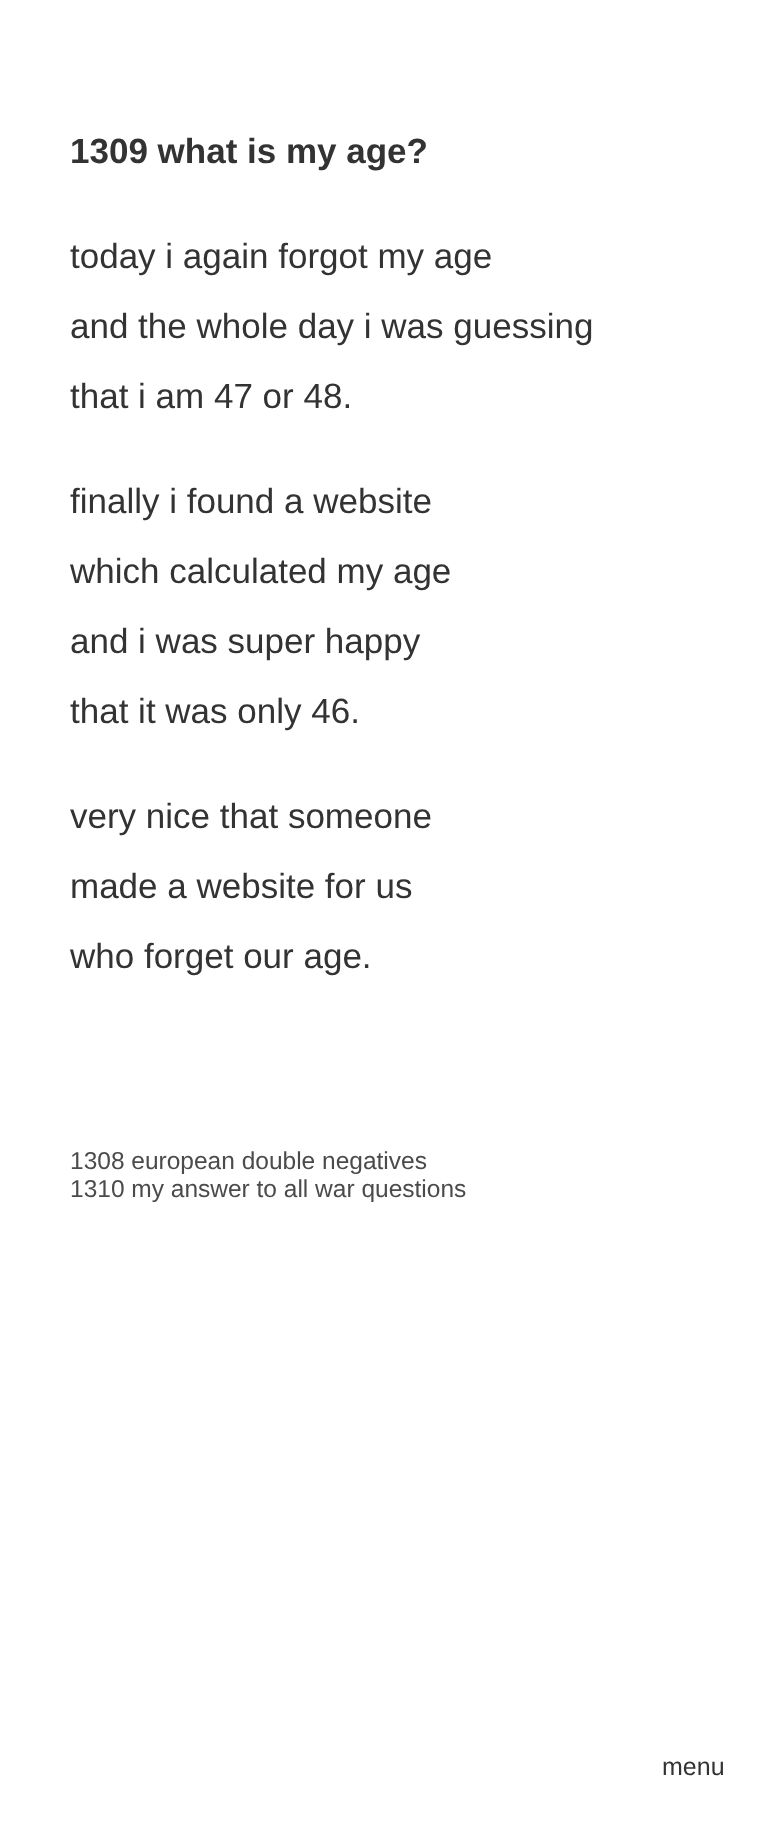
<svg xmlns="http://www.w3.org/2000/svg" width="777" height="1824">
	<rect width="100%" height="100%" fill="#FFFFFF" />
	<text x="70" y="163" font-family="Liberation Sans" font-size="35" font-weight="700" fill="#333333">1309 what is my age?</text>
	<g font-family="Liberation Sans" font-size="35" fill="#333333">
		<text x="70" y="268">today i again forgot my age</text>
		<text x="70" y="338">and the whole day i was guessing</text>
		<text x="70" y="408">that i am 47 or 48.</text>
		<text x="70" y="513">finally i found a website</text>
		<text x="70" y="583">which calculated my age</text>
		<text x="70" y="653">and i was super happy</text>
		<text x="70" y="723">that it was only 46.</text>
		<text x="70" y="828">very nice that someone</text>
		<text x="70" y="898">made a website for us</text>
		<text x="70" y="968">who forget our age.</text>
	</g>
	<g font-family="Liberation Sans" font-size="24.5" fill="#4B4B4B">
		<text x="70" y="1169">1308 european double negatives</text>
		<text x="70" y="1197">1310 my answer to all war questions</text>
	</g>
	<text x="662" y="1775" font-family="Liberation Sans" font-size="25" fill="#333333">menu</text>
</svg>
